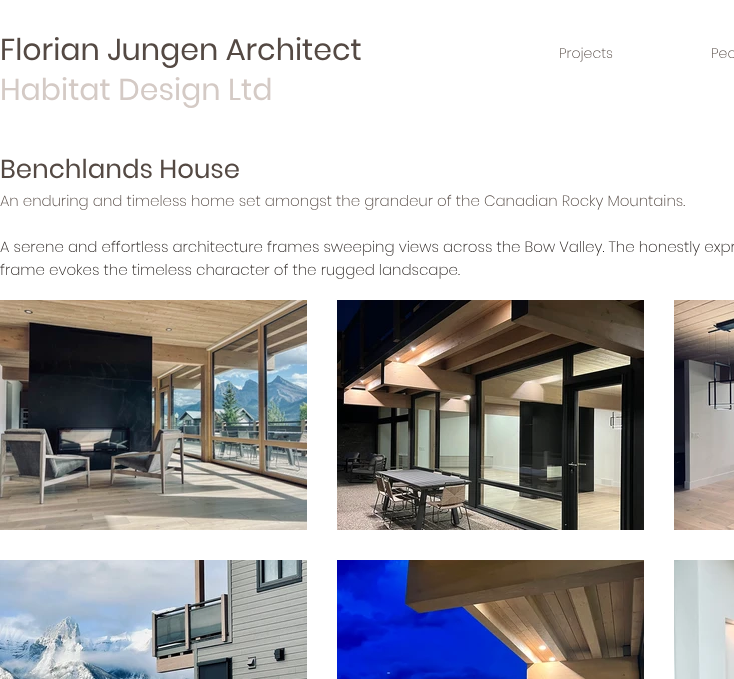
<svg xmlns="http://www.w3.org/2000/svg" width="734" height="679">
	<rect width="100%" height="100%" fill="#FFFFFF" />
	<text x="0" y="60" font-family="Poppins" font-size="30" fill="#544943">Florian Jungen Architect</text>
	<text x="0" y="100" font-family="Poppins" font-size="30" fill="#D4CAC5">Habitat Design Ltd</text>
	<g font-family="Poppins" font-size="14" font-weight="200" fill="#544943">
		<text x="559" y="58">Projects</text>
		<text x="711" y="58">Peo</text>
	</g>
	<text x="0" y="178" font-family="Poppins" font-size="26" fill="#544943">Benchlands House</text>
	<text x="0" y="206" font-family="Poppins" font-size="15" font-weight="200" fill="#544943">An enduring and timeless home set amongst the grandeur of the Canadian Rocky Mountains.</text>
	<g font-family="Poppins" font-size="15" font-weight="200" fill="#2A2421">
		<text x="0" y="252">A serene and effortless architecture frames sweeping views across the Bow Valley. The honestly expr</text>
		<text x="0" y="275">frame evokes the timeless character of the rugged landscape.</text>
	</g>
	<image x="0" y="300" width="307" height="230" href="assets/img1.png" />
	<image x="337" y="300" width="307" height="230" href="assets/img2.png" />
	<image x="674" y="300" width="60" height="230" href="assets/img3.png" />
	<image x="0" y="560" width="307" height="119" href="assets/img4.png" />
	<image x="337" y="560" width="307" height="119" href="assets/img5.png" />
	<image x="674" y="560" width="60" height="119" href="assets/img6.png" />
</svg>
